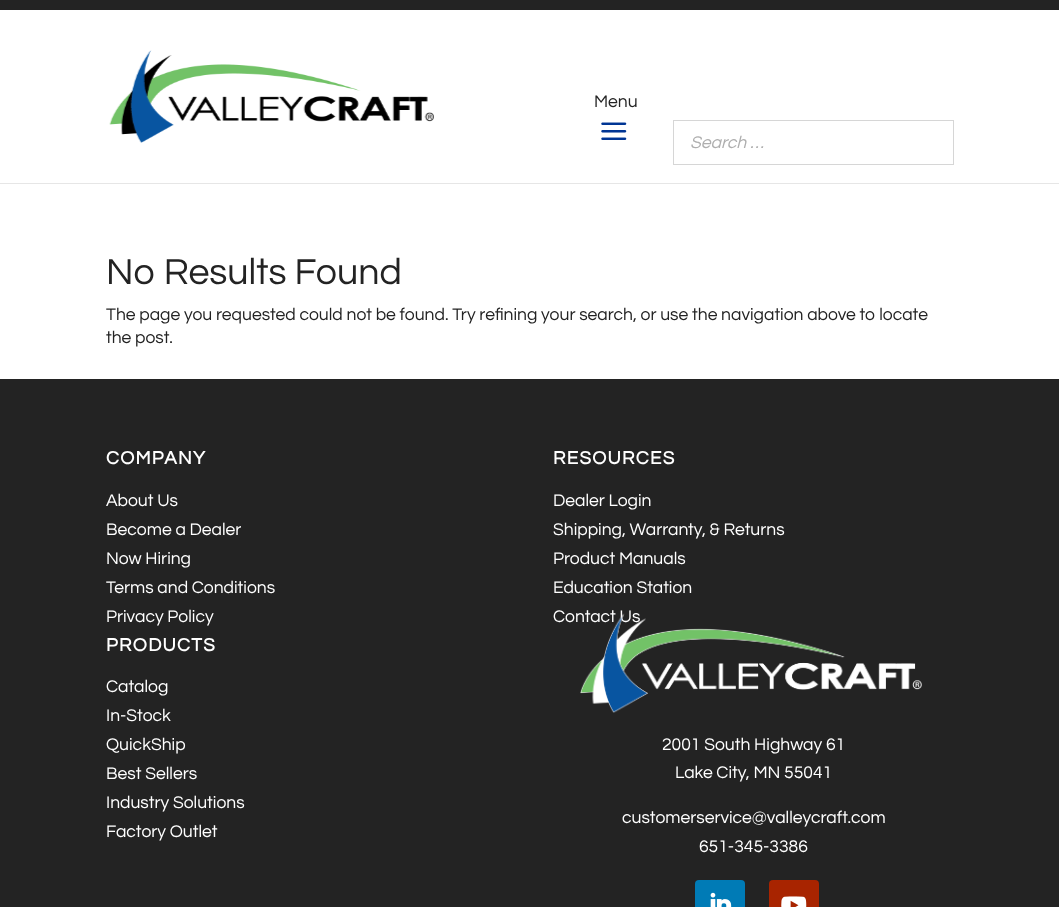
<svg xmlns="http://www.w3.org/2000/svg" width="1059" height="907">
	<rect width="100%" height="100%" fill="#FFFFFF" />
	<rect x="0" y="0" width="1059" height="10" fill="#232323" />
	<rect x="0" y="183" width="1059" height="1" fill="#E6E6E6" />
	<image x="109" y="50" width="325" height="93" href="assets/img1.png" />
	<text x="594" y="107" font-family="Questrial" font-size="17.5" fill="#232323">Menu</text>
	<image x="601" y="122" width="26" height="18" href="assets/img2.png" />
	<rect x="673.5" y="120.5" width="280" height="44" fill="none" stroke="#D6D6D6" />
	<text x="690" y="148" font-family="Questrial" font-size="17.5" font-style="italic" fill="#AEAEAE">Search …</text>
	<text x="106" y="284" font-family="Questrial" font-size="37.5" fill="#232323">No Results Found</text>
	<g font-family="Questrial" font-size="17.5" fill="#232323">
		<text x="106" y="320">The page you requested could not be found. Try refining your search, or use the navigation above to locate</text>
		<text x="106" y="343">the post.</text>
	</g>
	<rect x="0" y="379" width="1059" height="528" fill="#232323" />
	<text x="106" y="464" font-family="Questrial" font-size="18.75" font-weight="700" letter-spacing="1.25" fill="#FFFFFF">COMPANY</text>
	<g font-family="Questrial" font-size="17.5" fill="#FFFFFF">
		<text x="106" y="506">About Us</text>
		<text x="106" y="535">Become a Dealer</text>
		<text x="106" y="564">Now Hiring</text>
		<text x="106" y="593">Terms and Conditions</text>
		<text x="106" y="622">Privacy Policy</text>
	</g>
	<text x="553" y="464" font-family="Questrial" font-size="18.75" font-weight="700" letter-spacing="1.25" fill="#FFFFFF">RESOURCES</text>
	<g font-family="Questrial" font-size="17.5" fill="#FFFFFF">
		<text x="553" y="506">Dealer Login</text>
		<text x="553" y="535">Shipping, Warranty, &amp; Returns</text>
		<text x="553" y="564">Product Manuals</text>
		<text x="553" y="593">Education Station</text>
		<text x="553" y="622">Contact Us</text>
	</g>
	<text x="106" y="651" font-family="Questrial" font-size="18.75" font-weight="700" letter-spacing="1.25" fill="#FFFFFF">PRODUCTS</text>
	<g font-family="Questrial" font-size="17.5" fill="#FFFFFF">
		<text x="106" y="692">Catalog</text>
		<text x="106" y="721">In-Stock</text>
		<text x="106" y="750">QuickShip</text>
		<text x="106" y="779">Best Sellers</text>
		<text x="106" y="808">Industry Solutions</text>
		<text x="106" y="837">Factory Outlet</text>
	</g>
	<image x="580" y="613" width="342" height="100" href="assets/img3.png" />
	<g font-family="Questrial" font-size="17.5" fill="#FFFFFF">
		<text x="662" y="750">2001 South Highway 61</text>
		<text x="675" y="778">Lake City, MN 55041</text>
		<text x="622" y="823">customerservice@valleycraft.com</text>
		<text x="699" y="852">651-345-3386</text>
	</g>
	<rect x="695" y="880" width="50" height="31" rx="4" fill="#007BB6" />
	<image x="710" y="892" width="22" height="15" href="assets/img4.png" />
	<rect x="769" y="880" width="50" height="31" rx="4" fill="#A82400" />
	<image x="781" y="896" width="26" height="11" href="assets/img5.png" />
</svg>
